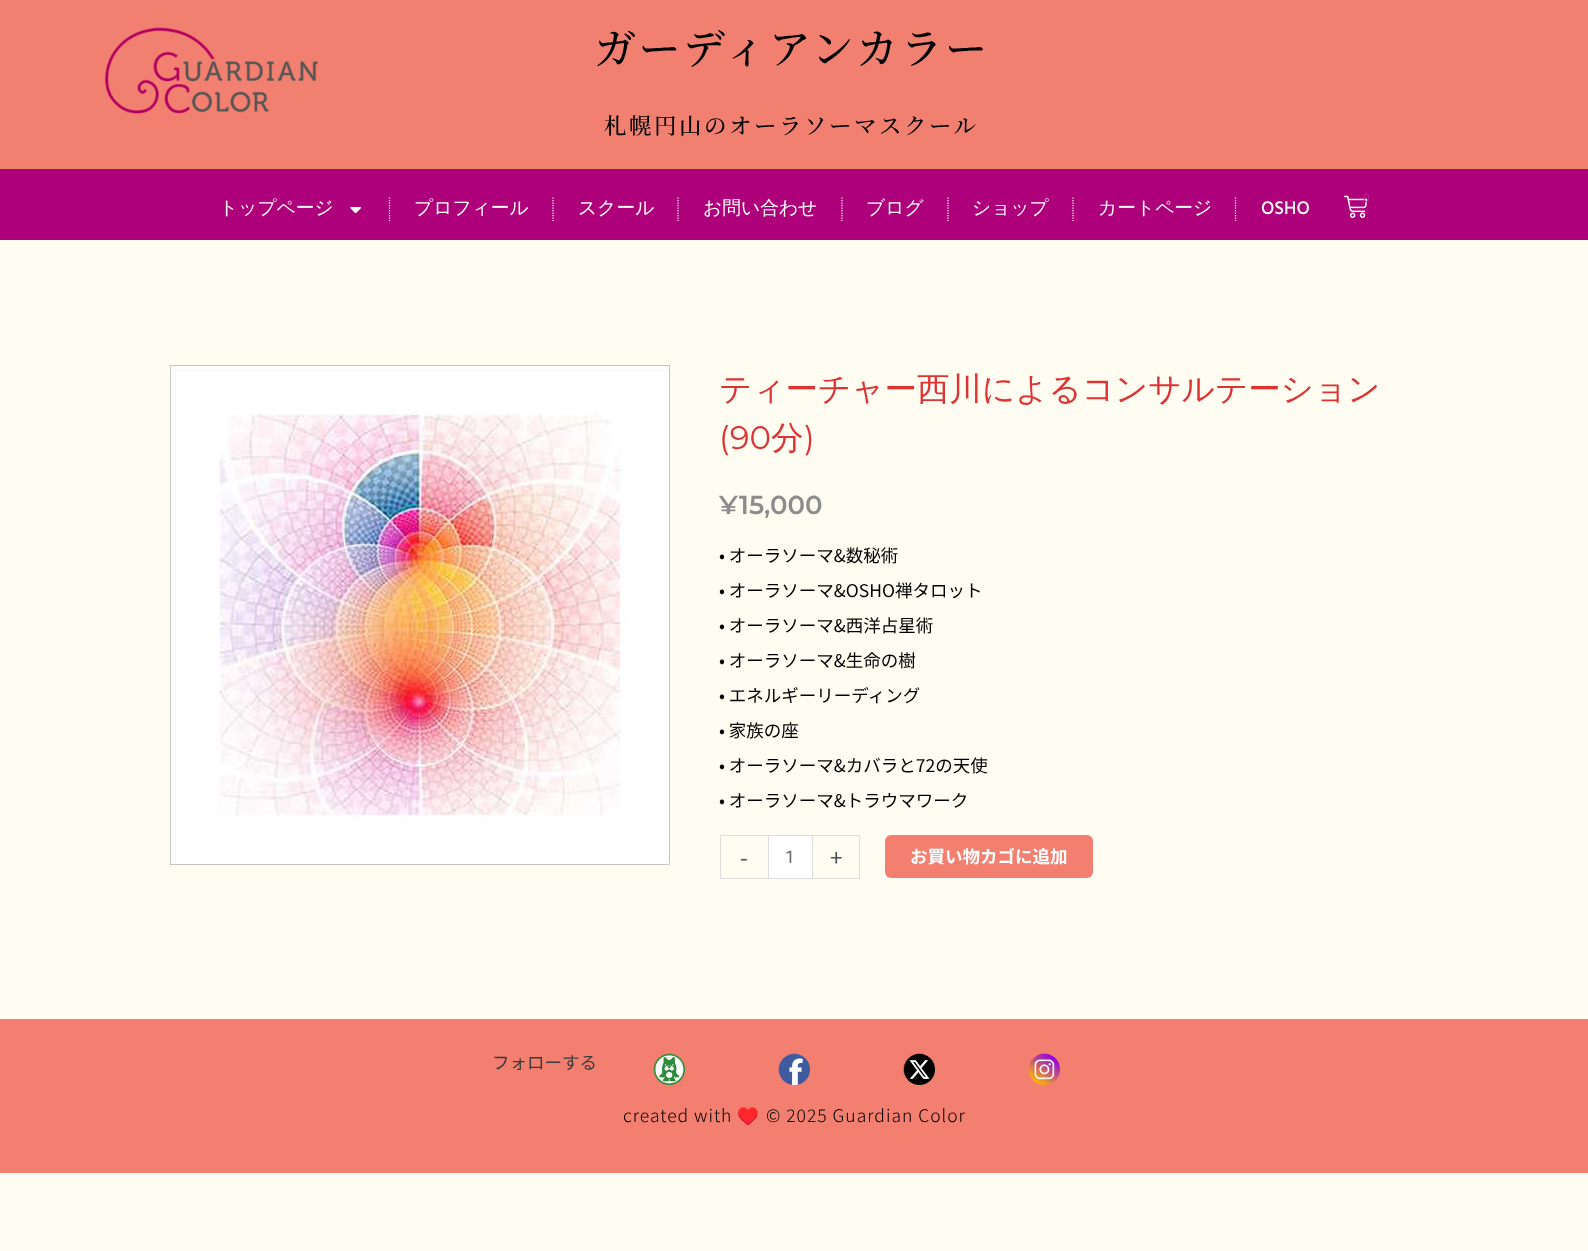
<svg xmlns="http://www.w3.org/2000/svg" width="1588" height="1251">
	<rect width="100%" height="100%" fill="#FFFCF1" />
	<rect x="0" y="0" width="1588" height="169" fill="#F28071" />
	<image x="105" y="27" width="213" height="87" href="assets/img1.png" />
	<text x="594" y="64" font-family="Noto Serif JP" font-size="42" font-weight="500" letter-spacing="2.5" fill="#000000">ガーディアンカラー</text>
	<text x="604" y="134" font-family="Noto Serif JP" font-size="22.5" font-weight="500" letter-spacing="2.5" fill="#000000">札幌円山のオーラソーマスクール</text>
	<rect x="0" y="169" width="1588" height="71" fill="#AF007B" />
	<text x="219" y="214" font-family="WenQuanYi Zen Hei" font-size="18.75" font-weight="500" fill="#FFFFFF">トップページ</text>
	<image x="350" y="207" width="11" height="7" href="assets/img2.png" />
	<path d="M389.5 197.5V221" fill="none" stroke="#FFFFFF" stroke-width="1.2" stroke-dasharray="1.25 1.25" />
	<text x="414" y="214" font-family="WenQuanYi Zen Hei" font-size="18.75" font-weight="500" fill="#FFFFFF">プロフィール</text>
	<path d="M553 197.5V221" fill="none" stroke="#FFFFFF" stroke-width="1.2" stroke-dasharray="1.25 1.25" />
	<text x="578" y="214" font-family="WenQuanYi Zen Hei" font-size="18.75" font-weight="500" fill="#FFFFFF">スクール</text>
	<path d="M678 197.5V221" fill="none" stroke="#FFFFFF" stroke-width="1.2" stroke-dasharray="1.25 1.25" />
	<text x="703" y="214" font-family="WenQuanYi Zen Hei" font-size="18.75" font-weight="500" fill="#FFFFFF">お問い合わせ</text>
	<path d="M842 197.5V221" fill="none" stroke="#FFFFFF" stroke-width="1.2" stroke-dasharray="1.25 1.25" />
	<text x="866" y="214" font-family="WenQuanYi Zen Hei" font-size="18.75" font-weight="500" fill="#FFFFFF">ブログ</text>
	<path d="M948 197.5V221" fill="none" stroke="#FFFFFF" stroke-width="1.2" stroke-dasharray="1.25 1.25" />
	<text x="972" y="214" font-family="WenQuanYi Zen Hei" font-size="18.75" font-weight="500" fill="#FFFFFF">ショップ</text>
	<path d="M1073 197.5V221" fill="none" stroke="#FFFFFF" stroke-width="1.2" stroke-dasharray="1.25 1.25" />
	<text x="1098" y="214" font-family="WenQuanYi Zen Hei" font-size="18.75" font-weight="500" fill="#FFFFFF">カートページ</text>
	<path d="M1235.5 197.5V221" fill="none" stroke="#FFFFFF" stroke-width="1.2" stroke-dasharray="1.25 1.25" />
	<text x="1261" y="214" font-family="Hind" font-size="18.75" font-weight="500" fill="#FFFFFF">OSHO</text>
	<image x="1344" y="195" width="24" height="23" href="assets/img3.png" />
	<text x="1363" y="202" font-family="Noto Sans JP" font-size="12" fill="#B9208B">0</text>
	<image x="170" y="365" width="500" height="500" href="assets/img4.png" />
	<text x="719" y="400" font-family="WenQuanYi Zen Hei" font-size="32.5" font-weight="500" fill="#DD3333">ティーチャー西川によるコンサルテーション</text>
	<text x="719" y="449" font-family="Montserrat" font-size="32.5" fill="#DD3333">(90</text>
	<text x="771" y="449" font-family="WenQuanYi Zen Hei" font-size="32.5" font-weight="500" fill="#DD3333">分</text>
	<text x="804" y="449" font-family="Montserrat" font-size="32.5" fill="#DD3333">)</text>
	<g font-family="Montserrat" font-size="26" font-weight="600" fill="#8C8C8C">
		<text x="719" y="514">¥</text>
		<text x="739" y="514">15,000</text>
	</g>
	<g font-family="Noto Sans JP" font-size="17.5" fill="#000000">
		<text x="719" y="562">• オーラソーマ&amp;数秘術</text>
		<text x="719" y="597">• オーラソーマ&amp;OSHO禅タロット</text>
		<text x="719" y="632">• オーラソーマ&amp;西洋占星術</text>
		<text x="719" y="667">• オーラソーマ&amp;生命の樹</text>
		<text x="719" y="702">• エネルギーリーディング</text>
		<text x="719" y="737">• 家族の座</text>
		<text x="719" y="772">• オーラソーマ&amp;カバラと72の天使</text>
		<text x="719" y="807">• オーラソーマ&amp;トラウマワーク</text>
	</g>
	<rect x="720" y="835" width="48" height="1" fill="#DDDDDD" />
	<rect x="720" y="878" width="48" height="1" fill="#DDDDDD" />
	<rect x="720" y="835" width="1" height="44" fill="#DDDDDD" />
	<text x="740" y="866" font-family="Noto Sans JP" font-size="22.5" fill="#4B4F58">-</text>
	<rect x="768.5" y="835.5" width="44" height="43" fill="#FFFFFF" stroke="#DDDDDD" />
	<text x="785" y="863" font-family="Roboto" font-size="17.5" fill="#666666">1</text>
	<rect x="813" y="835" width="47" height="1" fill="#DDDDDD" />
	<rect x="859" y="835" width="1" height="44" fill="#DDDDDD" />
	<rect x="813" y="878" width="47" height="1" fill="#DDDDDD" />
	<text x="830" y="866" font-family="Noto Sans JP" font-size="22.5" fill="#4B4F58">+</text>
	<rect x="885" y="835" width="208" height="43" rx="6" fill="#F27F6F" />
	<text x="910" y="863" font-family="Noto Sans JP" font-size="17.5" font-weight="700" fill="#FFFFFF">お買い物カゴに追加</text>
	<rect x="0" y="1019" width="1588" height="154" fill="#F27F6F" />
	<text x="492" y="1069" font-family="Noto Sans JP" font-size="17.5" fill="#3B3B3B">フォローする</text>
	<image x="653" y="1053" width="32" height="32" href="assets/img5.png" />
	<image x="778" y="1053" width="32" height="32" href="assets/img6.png" />
	<image x="903" y="1053" width="32" height="32" href="assets/img7.png" />
	<image x="1028" y="1053" width="32" height="32" href="assets/img8.png" />
	<text x="623" y="1122" font-family="Noto Sans JP" font-size="17.5" font-weight="300" letter-spacing="1" fill="#000000">created with</text>
	<text x="737" y="1122" font-family="Noto Color Emoji" font-size="17.5" letter-spacing="1" fill="#000000">♥️</text>
	<text x="766" y="1122" font-family="Noto Sans JP" font-size="17.5" font-weight="300" letter-spacing="1" fill="#000000">© 2025 Guardian Color</text>
</svg>
